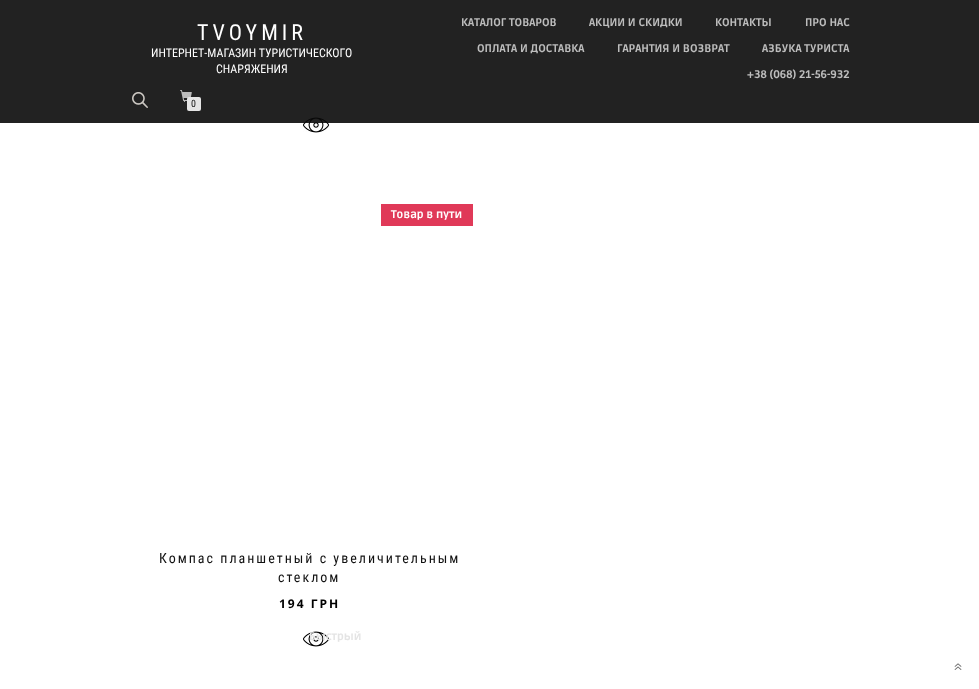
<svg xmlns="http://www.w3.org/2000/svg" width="979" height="689">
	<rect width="100%" height="100%" fill="#FFFFFF" />
	<image x="303" y="117" width="26" height="16" href="assets/img3.png" />
	<rect x="0" y="0" width="979" height="123" fill="#0A0A0A" fill-opacity="0.9" />
	<text x="197" y="40" font-family="Roboto Condensed" font-size="22" letter-spacing="4" fill="#FFFFFF">TVOYMIR</text>
	<g font-family="Roboto Condensed" font-size="12" fill="#FFFFFF">
		<text x="151" y="57">ИНТЕРНЕТ-МАГАЗИН ТУРИСТИЧЕСКОГО</text>
		<text x="216" y="73">СНАРЯЖЕНИЯ</text>
	</g>
	<g font-family="Ruda" font-size="11" font-weight="800" fill="#BDBDBD">
		<text x="461" y="26">КАТАЛОГ ТОВАРОВ</text>
		<text x="589" y="26">АКЦИИ И СКИДКИ</text>
		<text x="715" y="26">КОНТАКТЫ</text>
		<text x="805" y="26">ПРО НАС</text>
		<text x="477" y="52">ОПЛАТА И ДОСТАВКА</text>
		<text x="617" y="52">ГАРАНТИЯ И ВОЗВРАТ</text>
		<text x="762" y="52">АЗБУКА ТУРИСТА</text>
		<text x="747" y="78">+38 (068) 21-56-932</text>
	</g>
	<image x="132" y="92" width="16" height="16" href="assets/img1.png" />
	<image x="180" y="90" width="12" height="12" href="assets/img2.png" />
	<rect x="187" y="97" width="14" height="14" rx="2" fill="#E5E5E5" />
	<text x="191" y="107" font-family="Roboto Condensed" font-size="10" fill="#111111">0</text>
	<rect x="381" y="204" width="92" height="22" fill="#E03958" />
	<text x="391" y="218" font-family="Ruda" font-size="11" font-weight="800" fill="#FFFFFF">Товар в пути</text>
	<g font-family="Roboto Condensed" font-size="14" letter-spacing="2" fill="#111111">
		<text x="159" y="563">Компас планшетный с увеличительным</text>
		<text x="278" y="582">стеклом</text>
	</g>
	<text x="279" y="608" font-family="Open Sans" font-size="12" font-weight="700" letter-spacing="2" fill="#000000">194 ГРН</text>
	<image x="303" y="631" width="26" height="16" href="assets/img3.png" />
	<text x="309" y="640" font-family="Ruda" font-size="11" font-weight="800" fill="#E4E4E4">Быстрый</text>
	<image x="954" y="663" width="8" height="7" href="assets/img4.png" />
</svg>
